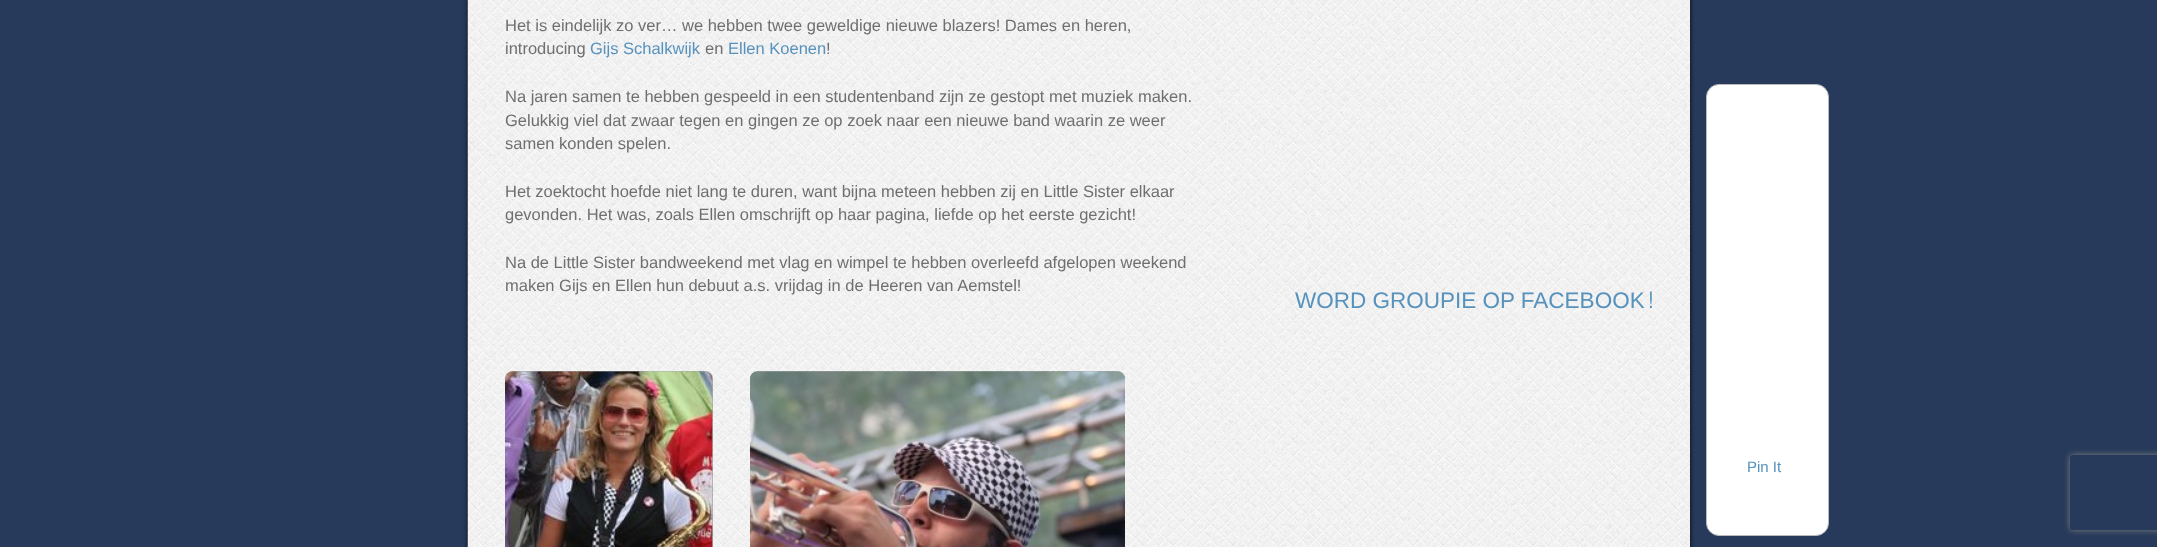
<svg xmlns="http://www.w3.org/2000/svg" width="2157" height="547">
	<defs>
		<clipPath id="clip1"><path d="M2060 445H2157V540H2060ZM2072.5 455H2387.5C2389 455 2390 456 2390 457.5V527.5C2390 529 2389 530 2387.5 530H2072.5C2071 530 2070 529 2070 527.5V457.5C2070 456 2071 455 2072.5 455Z" clip-rule="evenodd" /></clipPath>
	</defs>
	<rect width="100%" height="100%" fill="#273A5B" />
	<rect x="468" y="-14" width="1222" height="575" rx="8" fill="#000000" fill-opacity="0.5" filter="blur(2px)" />
	<image x="467" y="0" width="1" height="547" href="assets/img1.png" />
	<rect x="468" y="-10" width="1222" height="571" rx="8" fill="#000000" fill-opacity="0.5" filter="blur(2px)" />
	<image x="467" y="0" width="1223" height="547" href="assets/img2.png" />
	<g font-family="Liberation Sans" font-size="16.5" fill="#6F6F6F">
		<text x="505" y="31">Het is eindelijk zo ver… we hebben twee geweldige nieuwe blazers! Dames en heren,</text>
		<text x="505" y="54">introducing</text>
	</g>
	<text x="590" y="54" font-family="Liberation Sans" font-size="16.5" fill="#5692BC">Gijs Schalkwijk</text>
	<text x="705" y="54" font-family="Liberation Sans" font-size="16.5" fill="#6F6F6F">en</text>
	<text x="728" y="54" font-family="Liberation Sans" font-size="16.5" fill="#5692BC">Ellen Koenen</text>
	<g font-family="Liberation Sans" font-size="16.5" fill="#6F6F6F">
		<text x="826" y="54">!</text>
		<text x="505" y="102">Na jaren samen te hebben gespeeld in een studentenband zijn ze gestopt met muziek maken.</text>
		<text x="505" y="126">Gelukkig viel dat zwaar tegen en gingen ze op zoek naar een nieuwe band waarin ze weer</text>
		<text x="505" y="149">samen konden spelen.</text>
		<text x="505" y="197">Het zoektocht hoefde niet lang te duren, want bijna meteen hebben zij en Little Sister elkaar</text>
		<text x="505" y="220">gevonden. Het was, zoals Ellen omschrijft op haar pagina, liefde op het eerste gezicht!</text>
		<text x="505" y="268">Na de Little Sister bandweekend met vlag en wimpel te hebben overleefd afgelopen weekend</text>
		<text x="505" y="291">maken Gijs en Ellen hun debuut a.s. vrijdag in de Heeren van Aemstel!</text>
	</g>
	<rect x="505" y="371" width="208" height="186" rx="8" fill="#000000" fill-opacity="0.3" filter="blur(0.5px)" />
	<image x="505" y="371" width="208" height="176" href="assets/img3.png" />
	<rect x="750" y="371" width="375" height="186" rx="8" fill="#000000" fill-opacity="0.3" filter="blur(0.5px)" />
	<image x="750" y="371" width="375" height="176" href="assets/img4.png" />
	<text x="1295" y="308" font-family="Liberation Sans" font-size="22.5" fill="#5692BC">WORD GROUPIE OP FACEBOOK</text>
	<text x="1645" y="308" font-family="Chenla" font-size="22.5" fill="#5692BC">!</text>
	<rect x="1706.5" y="84.5" width="122" height="451" rx="12.5" fill="#FFFFFF" stroke="#BBBBBB" />
	<text x="1747" y="472" font-family="Liberation Sans" font-size="15" fill="#5692BC">Pin It</text>
	<g clip-path="url(#clip1)">
		<rect x="2070" y="455" width="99" height="75" rx="2.5" fill="#808080" filter="blur(3px)" />
	</g>
</svg>
